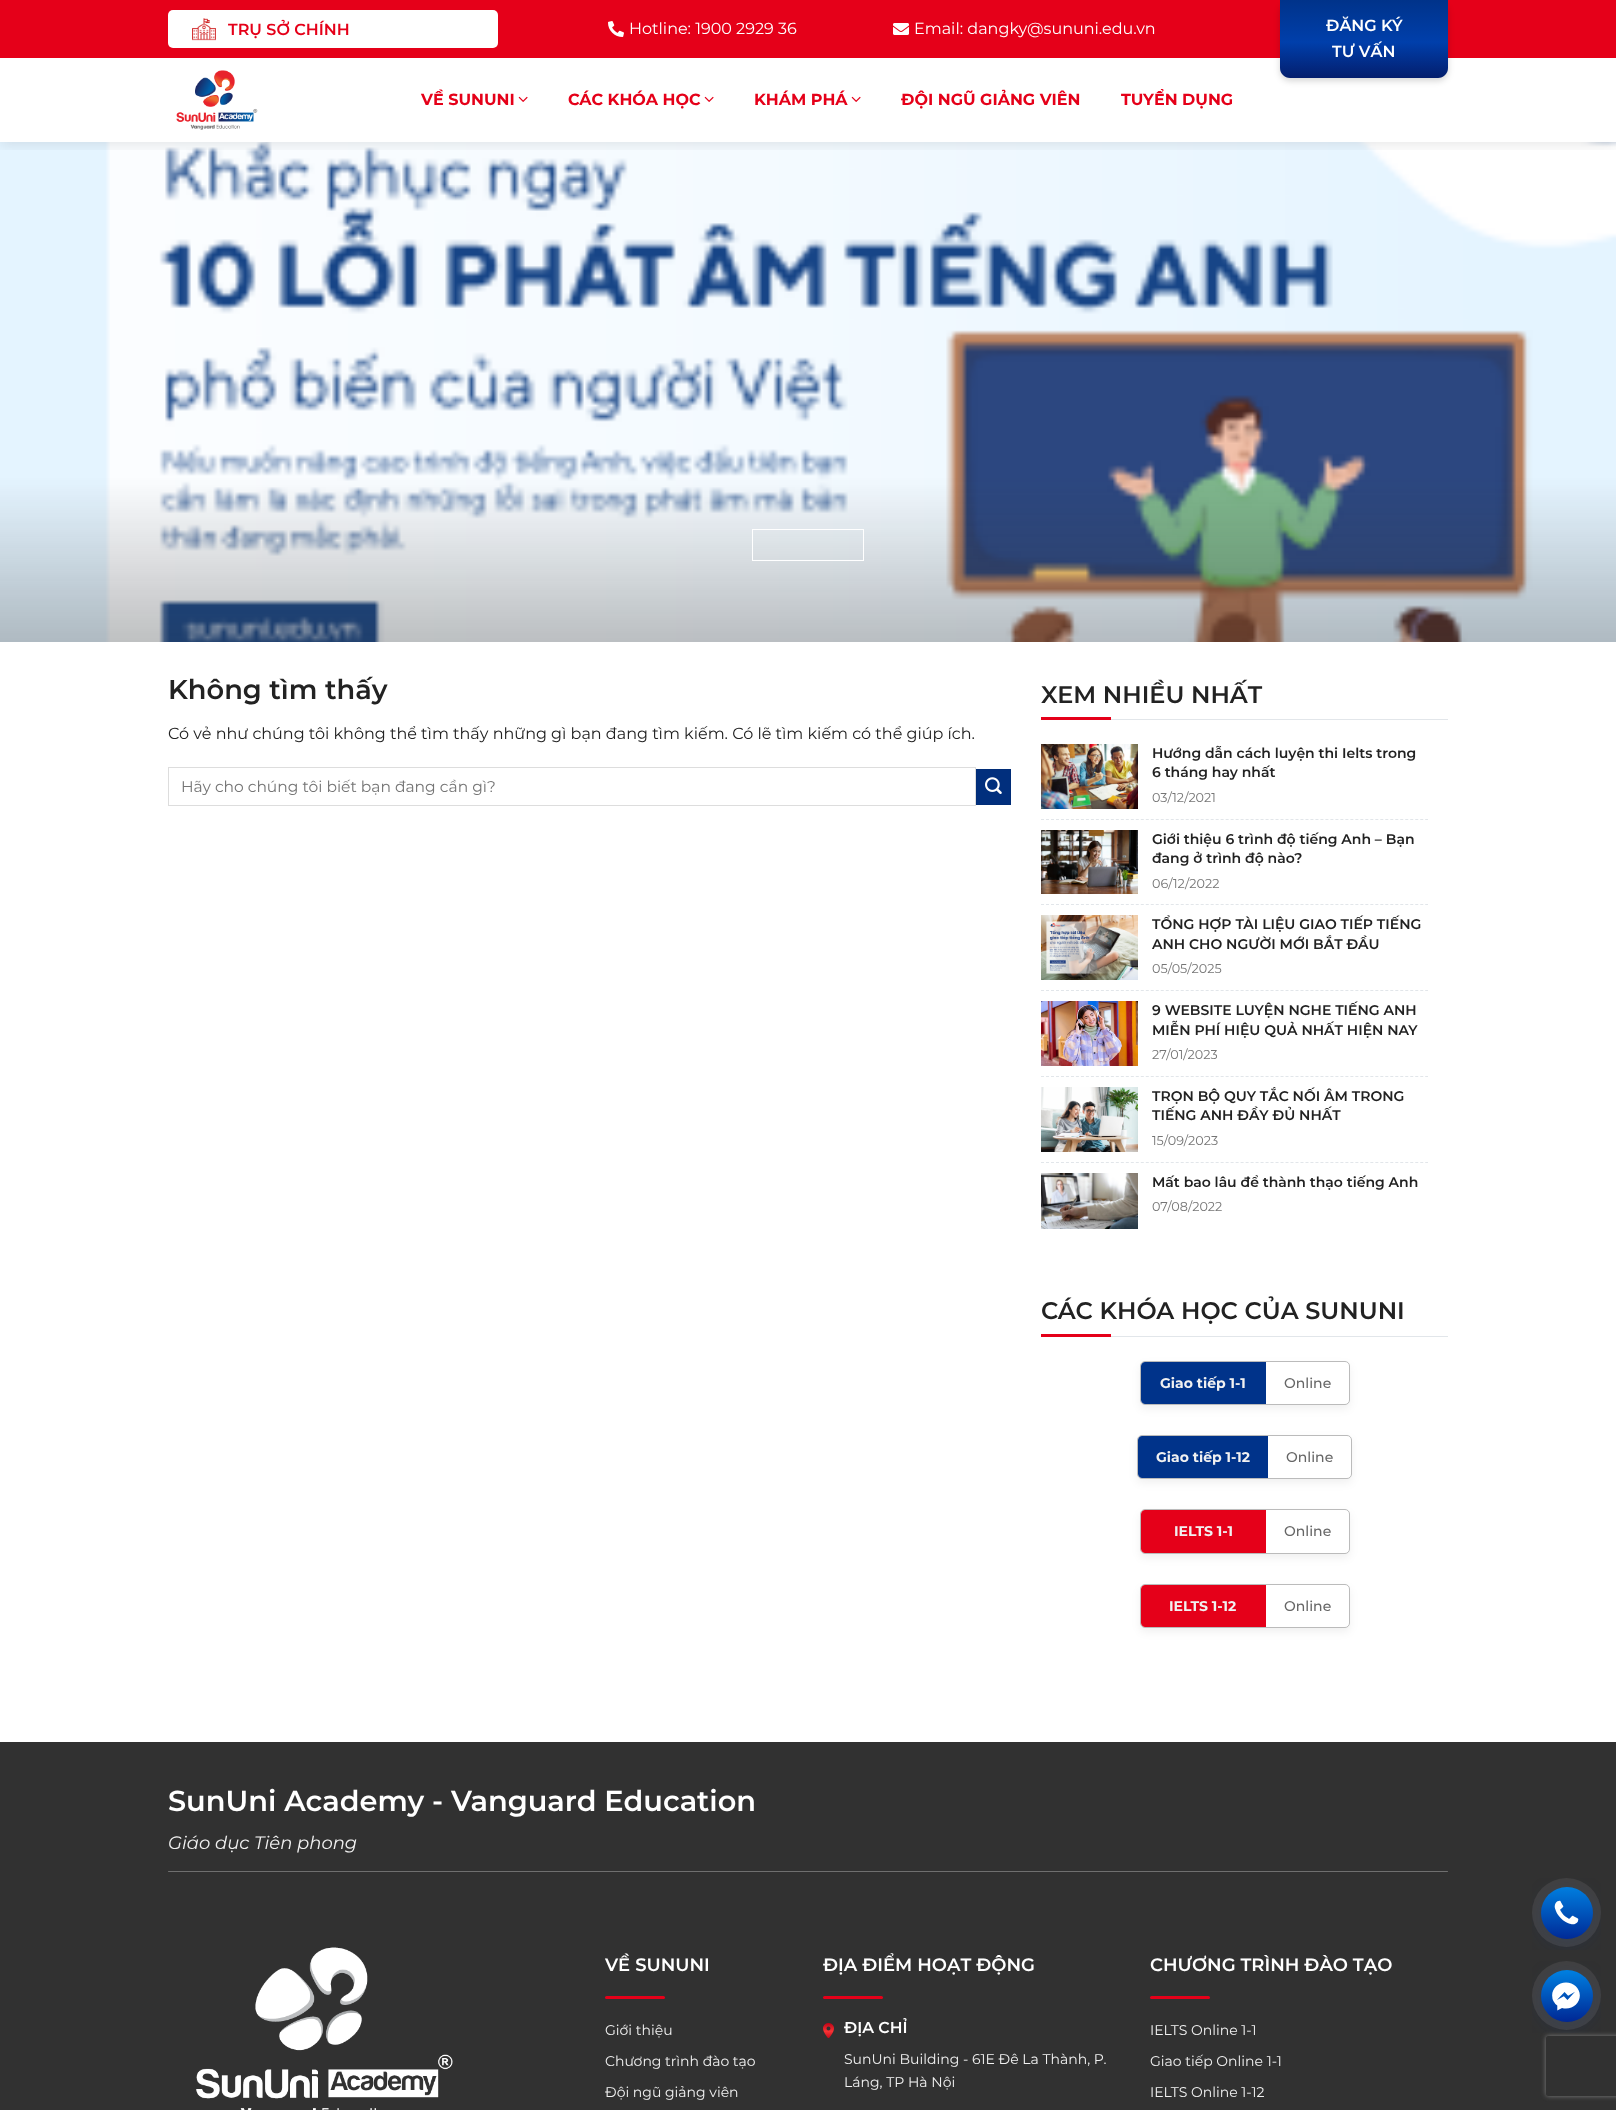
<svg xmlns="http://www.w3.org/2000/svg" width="1616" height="2110">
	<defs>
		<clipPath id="clip1"><rect x="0" y="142" width="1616" height="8" /></clipPath>
		<linearGradient id="g1" gradientUnits="userSpaceOnUse" x1="1364" y1="0" x2="1364" y2="78"><stop offset="0" stop-color="#00338A" /><stop offset="0.54" stop-color="#003FAB" /><stop offset="1" stop-color="#041E6D" /></linearGradient>
		<clipPath id="clip2"><path d="M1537 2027H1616V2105H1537ZM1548 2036H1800C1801 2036 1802 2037 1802 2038V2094C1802 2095 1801 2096 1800 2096H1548C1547 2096 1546 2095 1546 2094V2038C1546 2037 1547 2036 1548 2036Z" clip-rule="evenodd" /></clipPath>
	</defs>
	<rect width="100%" height="100%" fill="#FFFFFF" />
	<image x="0" y="142" width="1616" height="500" href="assets/img6.png" />
	<g clip-path="url(#clip1)">
		<rect x="0" y="3" width="1616" height="142" fill="#000000" fill-opacity="0.09" filter="blur(6.5px)" />
	</g>
	<rect x="0" y="0" width="1616" height="58" fill="#E50019" />
	<rect x="168" y="10" width="330" height="38" rx="5" fill="#FFFFFF" />
	<image x="192" y="18" width="24" height="23" href="assets/img1.png" />
	<text x="228" y="35" font-family="Montserrat" font-size="16" font-weight="600" fill="#E50019">TRỤ SỞ CHÍNH</text>
	<image x="608" y="21" width="16" height="16" href="assets/img2.png" />
	<text x="629" y="34" font-family="Montserrat" font-size="16" fill="#FFFFFF">Hotline: 1900 2929 36</text>
	<image x="893" y="23" width="16" height="12" href="assets/img3.png" />
	<text x="914" y="34" font-family="Montserrat" font-size="16" fill="#FFFFFF">Email: dangky@sununi.edu.vn</text>
	<rect x="1280" y="3" width="168" height="78" rx="10" fill="#000000" fill-opacity="0.16" filter="blur(3px)" />
	<path d="M1280 0H1448V68C1448 73.5 1443.5 78 1438 78H1290C1284.5 78 1280 73.5 1280 68Z" fill="url(#g1)" />
	<g font-family="Montserrat" font-size="16" font-weight="600" fill="#FFFFFF">
		<text x="1326" y="31">ĐĂNG KÝ</text>
		<text x="1332" y="57">TƯ VẤN</text>
	</g>
	<image x="176" y="70" width="82" height="60" href="assets/img4.png" />
	<text x="421" y="105" font-family="Montserrat" font-size="16" font-weight="700" fill="#E50019">VỀ SUNUNI</text>
	<image x="518" y="96" width="10" height="6" href="assets/img5.png" />
	<text x="568" y="105" font-family="Montserrat" font-size="16" font-weight="700" fill="#E50019">CÁC KHÓA HỌC</text>
	<image x="704" y="96" width="10" height="6" href="assets/img5.png" />
	<text x="754" y="105" font-family="Montserrat" font-size="16" font-weight="700" fill="#E50019">KHÁM PHÁ</text>
	<image x="851" y="96" width="10" height="6" href="assets/img5.png" />
	<g font-family="Montserrat" font-size="16" font-weight="700" fill="#E50019">
		<text x="901" y="105">ĐỘI NGŨ GIẢNG VIÊN</text>
		<text x="1121" y="105">TUYỂN DỤNG</text>
	</g>
	<rect x="752.5" y="529.5" width="111" height="31" fill="none" stroke="#FFFFFF" />
	<text x="168" y="699" font-family="Montserrat" font-size="27.25" font-weight="600" fill="#222222">Không tìm thấy</text>
	<text x="168" y="739" font-family="Montserrat" font-size="16" fill="#222222">Có vẻ như chúng tôi không thể tìm thấy những gì bạn đang tìm kiếm. Có lẽ tìm kiếm có thể giúp ích.</text>
	<rect x="168.5" y="767.5" width="807" height="38" fill="none" stroke="#DDDDDD" />
	<text x="181" y="792" font-family="Montserrat" font-size="15.5" fill="#757575">Hãy cho chúng tôi biết bạn đang cần gì?</text>
	<rect x="976.5" y="769.5" width="34" height="35" fill="#012F7D" stroke="#012D77" />
	<image x="985" y="777" width="17" height="17" href="assets/img7.png" />
	<rect x="1111" y="719" width="337" height="1" fill="#E2E6EA" />
	<text x="1041" y="703" font-family="Montserrat" font-size="24" font-weight="600" fill="#222222">XEM NHIỀU NHẤT</text>
	<rect x="1041" y="717" width="70" height="3" fill="#E50019" />
	<path d="M1041 819.5H1428" fill="none" stroke="#E2E6EA" stroke-dasharray="3 1.99" />
	<image x="1041" y="744" width="97" height="65" href="assets/img8.png" />
	<g font-family="Montserrat" font-size="14" font-weight="600" fill="#222222">
		<text x="1152" y="758">Hướng dẫn cách luyện thi Ielts trong</text>
		<text x="1152" y="777">6 tháng hay nhất</text>
	</g>
	<text x="1152" y="802" font-family="Montserrat" font-size="12.75" fill="#757575">03/12/2021</text>
	<path d="M1041 904.5H1428" fill="none" stroke="#E2E6EA" stroke-dasharray="3 1.99" />
	<image x="1041" y="830" width="97" height="64" href="assets/img9.png" />
	<g font-family="Montserrat" font-size="14" font-weight="600" fill="#222222">
		<text x="1152" y="844">Giới thiệu 6 trình độ tiếng Anh – Bạn</text>
		<text x="1152" y="863">đang ở trình độ nào?</text>
	</g>
	<text x="1152" y="888" font-family="Montserrat" font-size="12.75" fill="#757575">06/12/2022</text>
	<path d="M1041 990.5H1428" fill="none" stroke="#E2E6EA" stroke-dasharray="3 1.99" />
	<image x="1041" y="915" width="97" height="65" href="assets/img10.png" />
	<g font-family="Montserrat" font-size="14" font-weight="600" fill="#222222">
		<text x="1152" y="929">TỔNG HỢP TÀI LIỆU GIAO TIẾP TIẾNG</text>
		<text x="1152" y="949">ANH CHO NGƯỜI MỚI BẮT ĐẦU</text>
	</g>
	<text x="1152" y="973" font-family="Montserrat" font-size="12.75" fill="#757575">05/05/2025</text>
	<path d="M1041 1076.5H1428" fill="none" stroke="#E2E6EA" stroke-dasharray="3 1.99" />
	<image x="1041" y="1001" width="97" height="65" href="assets/img11.png" />
	<g font-family="Montserrat" font-size="14" font-weight="600" fill="#222222">
		<text x="1152" y="1015">9 WEBSITE LUYỆN NGHE TIẾNG ANH</text>
		<text x="1152" y="1035">MIỄN PHÍ HIỆU QUẢ NHẤT HIỆN NAY</text>
	</g>
	<text x="1152" y="1059" font-family="Montserrat" font-size="12.75" fill="#757575">27/01/2023</text>
	<path d="M1041 1162.5H1428" fill="none" stroke="#E2E6EA" stroke-dasharray="3 1.99" />
	<image x="1041" y="1087" width="97" height="65" href="assets/img12.png" />
	<g font-family="Montserrat" font-size="14" font-weight="600" fill="#222222">
		<text x="1152" y="1101">TRỌN BỘ QUY TẮC NỐI ÂM TRONG</text>
		<text x="1152" y="1120">TIẾNG ANH ĐẦY ĐỦ NHẤT</text>
	</g>
	<text x="1152" y="1145" font-family="Montserrat" font-size="12.75" fill="#757575">15/09/2023</text>
	<image x="1041" y="1173" width="97" height="56" href="assets/img13.png" />
	<text x="1152" y="1187" font-family="Montserrat" font-size="14" font-weight="600" fill="#222222">Mất bao lâu để thành thạo tiếng Anh</text>
	<text x="1152" y="1211" font-family="Montserrat" font-size="12.75" fill="#757575">07/08/2022</text>
	<rect x="1111" y="1336" width="337" height="1" fill="#E2E6EA" />
	<text x="1041" y="1319" font-family="Montserrat" font-size="24" font-weight="600" fill="#222222">CÁC KHÓA HỌC CỦA SUNUNI</text>
	<rect x="1041" y="1334" width="70" height="3" fill="#E50019" />
	<rect x="1140" y="1365" width="210" height="44" rx="5" fill="#000000" fill-opacity="0.06" filter="blur(4px)" />
	<rect x="1140.5" y="1361.5" width="209" height="43" rx="4.5" fill="#FFFFFF" stroke="#BBBBBB" />
	<path d="M1145 1362H1266V1404H1145C1143 1404 1141 1402 1141 1400V1366C1141 1364 1143 1362 1145 1362Z" fill="#00338A" />
	<text x="1160" y="1388" font-family="Montserrat" font-size="14" font-weight="700" fill="#F1F1F1">Giao tiếp 1-1</text>
	<text x="1284" y="1388" font-family="Montserrat" font-size="14" font-weight="500" fill="#666666">Online</text>
	<rect x="1137" y="1439" width="215" height="44" rx="5" fill="#000000" fill-opacity="0.06" filter="blur(4px)" />
	<rect x="1137.5" y="1435.5" width="214" height="43" rx="4.5" fill="#FFFFFF" stroke="#BBBBBB" />
	<path d="M1142 1436H1268V1478H1142C1140 1478 1138 1476 1138 1474V1440C1138 1438 1140 1436 1142 1436Z" fill="#00338A" />
	<text x="1156" y="1462" font-family="Montserrat" font-size="14" font-weight="700" fill="#F1F1F1">Giao tiếp 1-12</text>
	<text x="1286" y="1462" font-family="Montserrat" font-size="14" font-weight="500" fill="#666666">Online</text>
	<rect x="1140" y="1513" width="210" height="45" rx="5" fill="#000000" fill-opacity="0.06" filter="blur(4px)" />
	<rect x="1140.5" y="1509.5" width="209" height="44" rx="4.5" fill="#FFFFFF" stroke="#BBBBBB" />
	<path d="M1145 1510H1266V1553H1145C1143 1553 1141 1551 1141 1549V1514C1141 1512 1143 1510 1145 1510Z" fill="#E50019" />
	<text x="1174" y="1536" font-family="Montserrat" font-size="14" font-weight="700" fill="#F1F1F1">IELTS 1-1</text>
	<text x="1284" y="1536" font-family="Montserrat" font-size="14" font-weight="500" fill="#666666">Online</text>
	<rect x="1140" y="1588" width="210" height="44" rx="5" fill="#000000" fill-opacity="0.06" filter="blur(4px)" />
	<rect x="1140.5" y="1584.5" width="209" height="43" rx="4.5" fill="#FFFFFF" stroke="#BBBBBB" />
	<path d="M1145 1585H1266V1627H1145C1143 1627 1141 1625 1141 1623V1589C1141 1587 1143 1585 1145 1585Z" fill="#E50019" />
	<text x="1169" y="1611" font-family="Montserrat" font-size="14" font-weight="700" fill="#F1F1F1">IELTS 1-12</text>
	<text x="1284" y="1611" font-family="Montserrat" font-size="14" font-weight="500" fill="#666666">Online</text>
	<rect x="0" y="1742" width="1616" height="368" fill="#313131" />
	<text x="168" y="1811" font-family="Montserrat" font-size="28.8" font-weight="600" fill="#FFFFFF">SunUni Academy - Vanguard Education</text>
	<text x="168" y="1849" font-family="Montserrat" font-size="18" font-style="italic" fill="#F1F1F1">Giáo dục Tiên phong</text>
	<rect x="168" y="1871" width="1280" height="1" rx="0.5" fill="#6F6F6F" />
	<image x="196" y="1947" width="257" height="163" href="assets/img14.png" />
	<text x="605" y="1971" font-family="Montserrat" font-size="18" font-weight="600" fill="#FFFFFF">VỀ SUNUNI</text>
	<rect x="605" y="1996" width="60" height="3" rx="1.5" fill="#E50019" />
	<g font-family="Montserrat" font-size="14" fill="#F1F1F1">
		<text x="605" y="2035">Giới thiệu</text>
		<text x="605" y="2066">Chương trình đào tạo</text>
		<text x="605" y="2097">Đội ngũ giảng viên</text>
	</g>
	<text x="823" y="1971" font-family="Montserrat" font-size="18" font-weight="600" fill="#FFFFFF">ĐỊA ĐIỂM HOẠT ĐỘNG</text>
	<rect x="823" y="1996" width="60" height="3" rx="1.5" fill="#E50019" />
	<image x="823" y="2023" width="11" height="15" href="assets/img15.png" />
	<text x="844" y="2033" font-family="Montserrat" font-size="15.75" font-weight="600" fill="#FFFFFF">ĐỊA CHỈ</text>
	<g font-family="Montserrat" font-size="14" fill="#F1F1F1">
		<text x="844" y="2064">SunUni Building - 61E Đê La Thành, P.</text>
		<text x="844" y="2087">Láng, TP Hà Nội</text>
	</g>
	<text x="1150" y="1971" font-family="Montserrat" font-size="18" font-weight="600" fill="#FFFFFF">CHƯƠNG TRÌNH ĐÀO TẠO</text>
	<rect x="1150" y="1996" width="60" height="3" rx="1.5" fill="#E50019" />
	<g font-family="Montserrat" font-size="14" fill="#F1F1F1">
		<text x="1150" y="2035">IELTS Online 1-1</text>
		<text x="1150" y="2066">Giao tiếp Online 1-1</text>
		<text x="1150" y="2097">IELTS Online 1-12</text>
	</g>
	<image x="1532" y="1878" width="69" height="72" href="assets/img16.png" />
	<g clip-path="url(#clip2)">
		<rect x="1546" y="2036" width="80" height="60" rx="2" fill="#808080" filter="blur(2.5px)" />
	</g>
	<image x="1532" y="1961" width="69" height="72" href="assets/img17.png" />
</svg>
